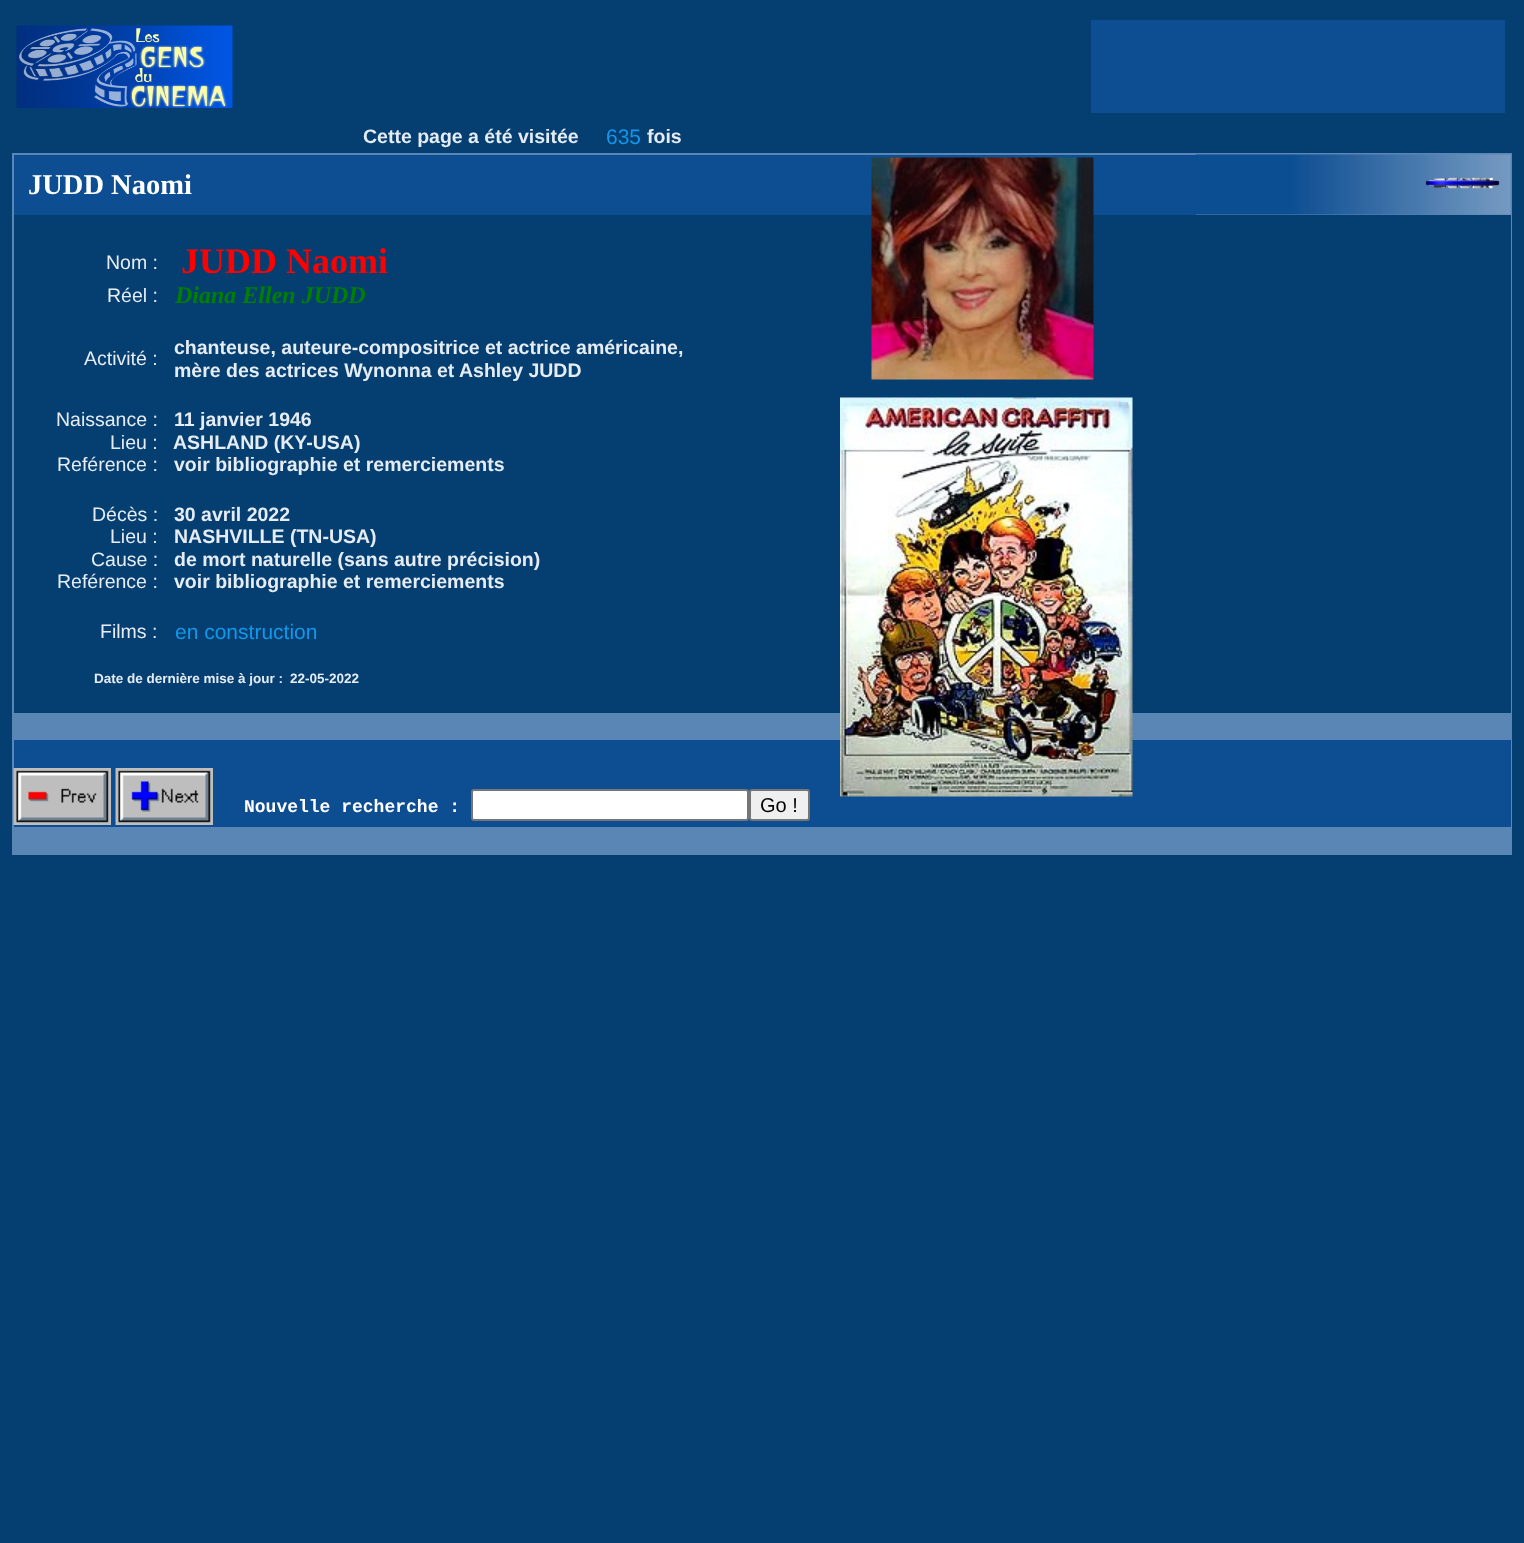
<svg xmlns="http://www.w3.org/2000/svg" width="1524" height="1543">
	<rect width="100%" height="100%" fill="#053F72" />
	<image x="16" y="25" width="217" height="83" href="assets/img1.png" />
	<rect x="1091" y="20" width="414" height="93" fill="#0D4E93" />
	<text x="363" y="143" font-family="Liberation Sans" font-size="19.5" font-weight="700" fill="#E5ECF3">Cette page a été visitée</text>
	<text x="606" y="144" font-family="Liberation Sans" font-size="21" fill="#1397E9">635</text>
	<text x="647" y="143" font-family="Liberation Sans" font-size="19.5" font-weight="700" fill="#E5ECF3">fois</text>
	<rect x="12" y="153" width="1500" height="702" fill="#5986B5" />
	<rect x="14" y="155" width="1182" height="60" fill="#0D4E93" />
	<text x="28" y="194" font-family="Liberation Serif" font-size="28.5" font-weight="700" fill="#FFFFFF">JUDD Naomi</text>
	<image x="1195" y="154" width="316" height="61" href="assets/img2.png" />
	<image x="1425" y="177" width="75" height="12" href="assets/img3.png" />
	<rect x="14" y="215" width="1497" height="498" fill="#053F72" />
	<text x="106" y="269" font-family="Liberation Sans" font-size="19.5" fill="#E5ECF3">Nom :</text>
	<text x="181" y="273" font-family="Liberation Serif" font-size="36" font-weight="700" fill="#FF0000">JUDD Naomi</text>
	<text x="107" y="302" font-family="Liberation Sans" font-size="19.5" fill="#E5ECF3">Réel :</text>
	<text x="175" y="303" font-family="Liberation Serif" font-size="24" font-weight="700" font-style="italic" fill="#008000">Diana Ellen JUDD</text>
	<text x="84" y="365" font-family="Liberation Sans" font-size="19.5" fill="#E5ECF3">Activité :</text>
	<g font-family="Liberation Sans" font-size="19.5" font-weight="700" fill="#E5ECF3">
		<text x="174" y="354">chanteuse, auteure-compositrice et actrice américaine,</text>
		<text x="174" y="377">mère des actrices Wynonna et Ashley JUDD</text>
	</g>
	<text x="56" y="426" font-family="Liberation Sans" font-size="19.5" fill="#E5ECF3">Naissance :</text>
	<text x="174" y="426" font-family="Liberation Sans" font-size="19.5" font-weight="700" fill="#E5ECF3">11 janvier 1946</text>
	<text x="110" y="449" font-family="Liberation Sans" font-size="19.5" fill="#E5ECF3">Lieu :</text>
	<text x="173" y="449" font-family="Liberation Sans" font-size="19.5" font-weight="700" fill="#E5ECF3">ASHLAND (KY-USA)</text>
	<image x="871" y="157" width="223" height="223" href="assets/img4.png" />
	<text x="57" y="471" font-family="Liberation Sans" font-size="19.5" fill="#E5ECF3">Reférence :</text>
	<text x="174" y="471" font-family="Liberation Sans" font-size="19.5" font-weight="700" fill="#E5ECF3">voir bibliographie et remerciements</text>
	<text x="92" y="521" font-family="Liberation Sans" font-size="19.5" fill="#E5ECF3">Décès :</text>
	<text x="174" y="521" font-family="Liberation Sans" font-size="19.5" font-weight="700" fill="#E5ECF3">30 avril 2022</text>
	<text x="110" y="543" font-family="Liberation Sans" font-size="19.5" fill="#E5ECF3">Lieu :</text>
	<text x="174" y="543" font-family="Liberation Sans" font-size="19.5" font-weight="700" fill="#E5ECF3">NASHVILLE (TN-USA)</text>
	<rect x="14" y="740" width="1497" height="27" fill="#0D4E93" />
	<rect x="14" y="767" width="1497" height="60" fill="#0D4E93" />
	<image x="840" y="397" width="293" height="400" href="assets/img5.png" />
	<text x="91" y="566" font-family="Liberation Sans" font-size="19.5" fill="#E5ECF3">Cause :</text>
	<text x="174" y="566" font-family="Liberation Sans" font-size="19.5" font-weight="700" fill="#E5ECF3">de mort naturelle (sans autre précision)</text>
	<text x="57" y="588" font-family="Liberation Sans" font-size="19.5" fill="#E5ECF3">Reférence :</text>
	<text x="174" y="588" font-family="Liberation Sans" font-size="19.5" font-weight="700" fill="#E5ECF3">voir bibliographie et remerciements</text>
	<text x="100" y="638" font-family="Liberation Sans" font-size="19.5" fill="#E5ECF3">Films :</text>
	<text x="175" y="639" font-family="Liberation Sans" font-size="21" fill="#1397E9">en construction</text>
	<g font-family="Liberation Sans" font-size="13.5" font-weight="700" fill="#E5ECF3">
		<text x="94" y="683">Date de dernière mise à jour :</text>
		<text x="290" y="683">22-05-2022</text>
	</g>
	<image x="13" y="768" width="98" height="57" href="assets/img6.png" />
	<image x="115" y="768" width="98" height="57" href="assets/img7.png" />
	<text x="244" y="812" font-family="Liberation Mono" font-size="18" font-weight="700" fill="#FFFFFF">Nouvelle recherche :</text>
	<rect x="472" y="790" width="276" height="30" rx="2" fill="#FFFFFF" stroke="#767676" stroke-width="2" />
	<rect x="750" y="790" width="59" height="30" rx="2" fill="#EFEFEF" stroke="#767676" stroke-width="2" />
	<text x="760" y="812" font-family="Liberation Sans" font-size="20" fill="#000000">Go !</text>
</svg>
